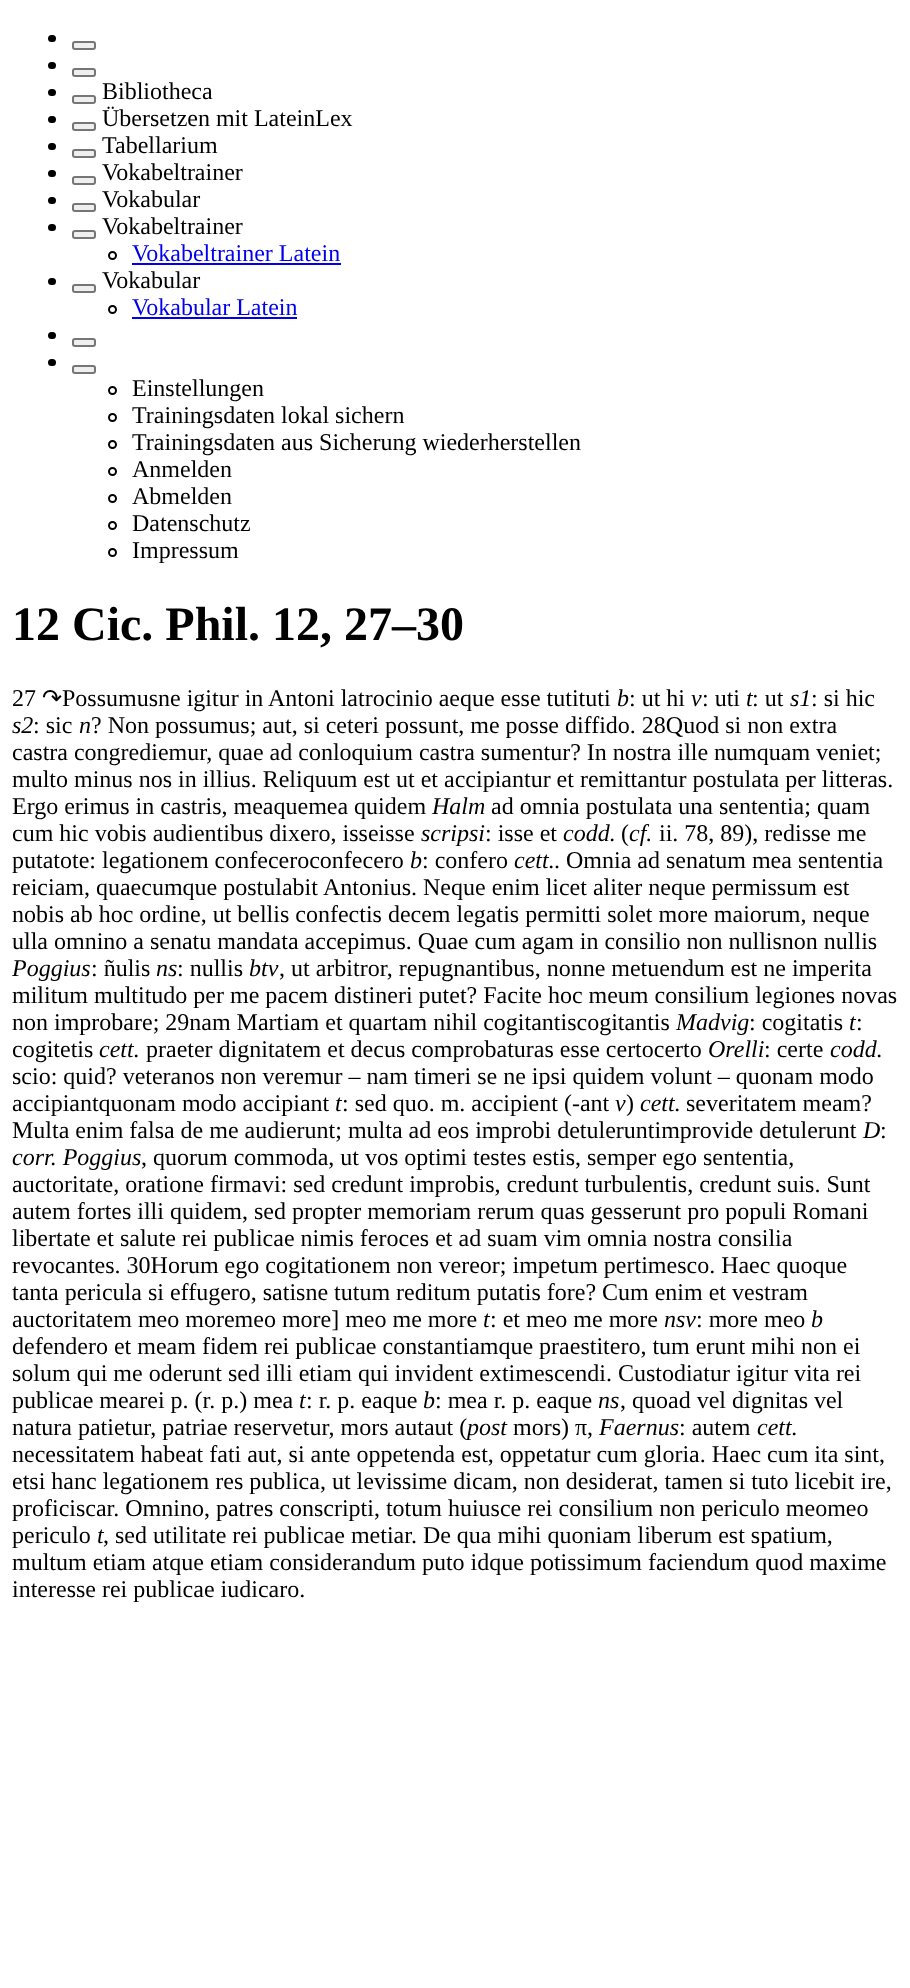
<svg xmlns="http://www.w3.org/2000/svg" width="910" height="1988">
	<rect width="100%" height="100%" fill="#FFFFFF" />
	<rect x="48" y="35" width="8" height="7" rx="3.5" fill="#000000" />
	<rect x="73" y="42" width="22" height="7" rx="2" fill="#EFEFEF" stroke="#767676" stroke-width="2" />
	<rect x="48" y="62" width="8" height="7" rx="3.5" fill="#000000" />
	<rect x="73" y="69" width="22" height="7" rx="2" fill="#EFEFEF" stroke="#767676" stroke-width="2" />
	<rect x="48" y="89" width="8" height="7" rx="3.5" fill="#000000" />
	<text x="102" y="99" font-family="Liberation Serif" font-size="24" fill="#000000">Bibliotheca</text>
	<rect x="73" y="96" width="22" height="7" rx="2" fill="#EFEFEF" stroke="#767676" stroke-width="2" />
	<rect x="48" y="116" width="8" height="7" rx="3.5" fill="#000000" />
	<text x="102" y="126" font-family="Liberation Serif" font-size="24" fill="#000000">Übersetzen mit LateinLex</text>
	<rect x="73" y="123" width="22" height="7" rx="2" fill="#EFEFEF" stroke="#767676" stroke-width="2" />
	<rect x="48" y="143" width="8" height="7" rx="3.5" fill="#000000" />
	<text x="102" y="153" font-family="Liberation Serif" font-size="24" fill="#000000">Tabellarium</text>
	<rect x="73" y="150" width="22" height="7" rx="2" fill="#EFEFEF" stroke="#767676" stroke-width="2" />
	<rect x="48" y="170" width="8" height="7" rx="3.5" fill="#000000" />
	<text x="102" y="180" font-family="Liberation Serif" font-size="24" fill="#000000">Vokabeltrainer</text>
	<rect x="73" y="177" width="22" height="7" rx="2" fill="#EFEFEF" stroke="#767676" stroke-width="2" />
	<rect x="48" y="197" width="8" height="7" rx="3.5" fill="#000000" />
	<text x="102" y="207" font-family="Liberation Serif" font-size="24" fill="#000000">Vokabular</text>
	<rect x="73" y="204" width="22" height="7" rx="2" fill="#EFEFEF" stroke="#767676" stroke-width="2" />
	<rect x="48" y="224" width="8" height="7" rx="3.5" fill="#000000" />
	<text x="102" y="234" font-family="Liberation Serif" font-size="24" fill="#000000">Vokabeltrainer</text>
	<rect x="73" y="231" width="22" height="7" rx="2" fill="#EFEFEF" stroke="#767676" stroke-width="2" />
	<circle cx="112.5" cy="255.5" r="3.5" fill="none" stroke="#000000" stroke-width="2" />
	<text x="132" y="261" font-family="Liberation Serif" font-size="24" fill="#0000EE">Vokabeltrainer Latein</text>
	<rect x="132" y="263" width="209" height="2" fill="#0000EE" />
	<rect x="48" y="278" width="8" height="7" rx="3.5" fill="#000000" />
	<text x="102" y="288" font-family="Liberation Serif" font-size="24" fill="#000000">Vokabular</text>
	<rect x="73" y="285" width="22" height="7" rx="2" fill="#EFEFEF" stroke="#767676" stroke-width="2" />
	<circle cx="112.5" cy="309.5" r="3.5" fill="none" stroke="#000000" stroke-width="2" />
	<text x="132" y="315" font-family="Liberation Serif" font-size="24" fill="#0000EE">Vokabular Latein</text>
	<rect x="132" y="317" width="165" height="2" fill="#0000EE" />
	<rect x="48" y="332" width="8" height="7" rx="3.5" fill="#000000" />
	<rect x="73" y="339" width="22" height="7" rx="2" fill="#EFEFEF" stroke="#767676" stroke-width="2" />
	<rect x="48" y="359" width="8" height="7" rx="3.5" fill="#000000" />
	<rect x="73" y="366" width="22" height="7" rx="2" fill="#EFEFEF" stroke="#767676" stroke-width="2" />
	<circle cx="112.5" cy="390.5" r="3.5" fill="none" stroke="#000000" stroke-width="2" />
	<text x="132" y="396" font-family="Liberation Serif" font-size="24" fill="#000000">Einstellungen</text>
	<circle cx="112.5" cy="417.5" r="3.5" fill="none" stroke="#000000" stroke-width="2" />
	<text x="132" y="423" font-family="Liberation Serif" font-size="24" fill="#000000">Trainingsdaten lokal sichern</text>
	<circle cx="112.5" cy="444.5" r="3.5" fill="none" stroke="#000000" stroke-width="2" />
	<text x="132" y="450" font-family="Liberation Serif" font-size="24" fill="#000000">Trainingsdaten aus Sicherung wiederherstellen</text>
	<circle cx="112.5" cy="471.5" r="3.5" fill="none" stroke="#000000" stroke-width="2" />
	<text x="132" y="477" font-family="Liberation Serif" font-size="24" fill="#000000">Anmelden</text>
	<circle cx="112.5" cy="498.5" r="3.5" fill="none" stroke="#000000" stroke-width="2" />
	<text x="132" y="504" font-family="Liberation Serif" font-size="24" fill="#000000">Abmelden</text>
	<circle cx="112.5" cy="525.5" r="3.5" fill="none" stroke="#000000" stroke-width="2" />
	<text x="132" y="531" font-family="Liberation Serif" font-size="24" fill="#000000">Datenschutz</text>
	<circle cx="112.5" cy="552.5" r="3.5" fill="none" stroke="#000000" stroke-width="2" />
	<text x="132" y="558" font-family="Liberation Serif" font-size="24" fill="#000000">Impressum</text>
	<text x="12" y="640" font-family="Liberation Serif" font-size="48" font-weight="700" fill="#000000">12 Cic. Phil. 12, 27–30</text>
	<text x="12" y="706" font-family="Liberation Serif" font-size="24" fill="#000000">27</text>
	<text x="42" y="706" font-family="DejaVu Sans" font-size="24" fill="#000000">↷</text>
	<g font-family="Liberation Serif" font-size="24" fill="#000000">
		<text x="62" y="706">Possumusne igitur in</text>
		<text x="268" y="706">Antoni latrocinio aeque esse tutituti</text>
	</g>
	<text x="617" y="706" font-family="Liberation Serif" font-size="24" font-style="italic" fill="#000000">b</text>
	<text x="629" y="706" font-family="Liberation Serif" font-size="24" fill="#000000">: ut hi</text>
	<text x="691" y="706" font-family="Liberation Serif" font-size="24" font-style="italic" fill="#000000">v</text>
	<text x="702" y="706" font-family="Liberation Serif" font-size="24" fill="#000000">: uti</text>
	<text x="746" y="706" font-family="Liberation Serif" font-size="24" font-style="italic" fill="#000000">t</text>
	<text x="752" y="706" font-family="Liberation Serif" font-size="24" fill="#000000">: ut</text>
	<text x="790" y="706" font-family="Liberation Serif" font-size="24" font-style="italic" fill="#000000">s1</text>
	<text x="811" y="706" font-family="Liberation Serif" font-size="24" fill="#000000">: si hic</text>
	<text x="12" y="733" font-family="Liberation Serif" font-size="24" font-style="italic" fill="#000000">s2</text>
	<text x="33" y="733" font-family="Liberation Serif" font-size="24" fill="#000000">: sic</text>
	<text x="79" y="733" font-family="Liberation Serif" font-size="24" font-style="italic" fill="#000000">n</text>
	<g font-family="Liberation Serif" font-size="24" fill="#000000">
		<text x="91" y="733">? Non possumus; aut, si ceteri possunt, me posse diffido. 28Quod si non extra</text>
		<text x="12" y="760">castra congrediemur, quae ad conloquium castra sumentur? In nostra ille numquam veniet;</text>
		<text x="12" y="787">multo minus nos in illius. Reliquum est ut et accipiantur et remittantur postulata per litteras.</text>
		<text x="12" y="814">Ergo erimus in castris, meaquemea quidem</text>
	</g>
	<text x="432" y="814" font-family="Liberation Serif" font-size="24" font-style="italic" fill="#000000">Halm</text>
	<g font-family="Liberation Serif" font-size="24" fill="#000000">
		<text x="491" y="814">ad omnia postulata una sententia; quam</text>
		<text x="12" y="841">cum hic vobis audientibus dixero, isseisse</text>
	</g>
	<text x="421" y="841" font-family="Liberation Serif" font-size="24" font-style="italic" fill="#000000">scripsi</text>
	<text x="485" y="841" font-family="Liberation Serif" font-size="24" fill="#000000">: isse et</text>
	<text x="563" y="841" font-family="Liberation Serif" font-size="24" font-style="italic" fill="#000000">codd.</text>
	<text x="621" y="841" font-family="Liberation Serif" font-size="24" fill="#000000">(</text>
	<text x="629" y="841" font-family="Liberation Serif" font-size="24" font-style="italic" fill="#000000">cf.</text>
	<g font-family="Liberation Serif" font-size="24" fill="#000000">
		<text x="659" y="841">ii. 78, 89), redisse me</text>
		<text x="12" y="868">putatote: legationem confeceroconfecero</text>
	</g>
	<text x="410" y="868" font-family="Liberation Serif" font-size="24" font-style="italic" fill="#000000">b</text>
	<text x="422" y="868" font-family="Liberation Serif" font-size="24" fill="#000000">: confero</text>
	<text x="514" y="868" font-family="Liberation Serif" font-size="24" font-style="italic" fill="#000000">cett.</text>
	<g font-family="Liberation Serif" font-size="24" fill="#000000">
		<text x="554" y="868">. Omnia ad senatum mea sententia</text>
		<text x="12" y="895">reiciam, quaecumque postulabit</text>
		<text x="323" y="895">Antonius. Neque enim licet aliter neque permissum est</text>
		<text x="12" y="922">nobis ab hoc ordine, ut bellis confectis decem legatis permitti solet more maiorum, neque</text>
		<text x="12" y="949">ulla omnino a senatu mandata accepimus. Quae cum agam in consilio non nullisnon nullis</text>
	</g>
	<text x="12" y="976" font-family="Liberation Serif" font-size="24" font-style="italic" fill="#000000">Poggius</text>
	<text x="91" y="976" font-family="Liberation Serif" font-size="24" fill="#000000">: ñulis</text>
	<text x="156" y="976" font-family="Liberation Serif" font-size="24" font-style="italic" fill="#000000">ns</text>
	<text x="177" y="976" font-family="Liberation Serif" font-size="24" fill="#000000">: nullis</text>
	<text x="249" y="976" font-family="Liberation Serif" font-size="24" font-style="italic" fill="#000000">btv</text>
	<g font-family="Liberation Serif" font-size="24" fill="#000000">
		<text x="279" y="976">, ut arbitror, repugnantibus, nonne metuendum est ne imperita</text>
		<text x="12" y="1003">militum multitudo per me pacem distineri putet? Facite hoc meum consilium legiones novas</text>
		<text x="12" y="1030">non improbare; 29nam Martiam et quartam nihil cogitantiscogitantis</text>
	</g>
	<text x="676" y="1030" font-family="Liberation Serif" font-size="24" font-style="italic" fill="#000000">Madvig</text>
	<text x="749" y="1030" font-family="Liberation Serif" font-size="24" fill="#000000">: cogitatis</text>
	<text x="849" y="1030" font-family="Liberation Serif" font-size="24" font-style="italic" fill="#000000">t</text>
	<g font-family="Liberation Serif" font-size="24" fill="#000000">
		<text x="856" y="1030">:</text>
		<text x="12" y="1057">cogitetis</text>
	</g>
	<text x="99" y="1057" font-family="Liberation Serif" font-size="24" font-style="italic" fill="#000000">cett.</text>
	<text x="146" y="1057" font-family="Liberation Serif" font-size="24" fill="#000000">praeter dignitatem et decus comprobaturas esse certocerto</text>
	<text x="708" y="1057" font-family="Liberation Serif" font-size="24" font-style="italic" fill="#000000">Orelli</text>
	<text x="764" y="1057" font-family="Liberation Serif" font-size="24" fill="#000000">: certe</text>
	<text x="830" y="1057" font-family="Liberation Serif" font-size="24" font-style="italic" fill="#000000">codd.</text>
	<g font-family="Liberation Serif" font-size="24" fill="#000000">
		<text x="12" y="1084">scio: quid? veteranos non veremur – nam timeri se ne ipsi quidem volunt – quonam modo</text>
		<text x="12" y="1111">accipiantquonam modo accipiant</text>
	</g>
	<text x="335" y="1111" font-family="Liberation Serif" font-size="24" font-style="italic" fill="#000000">t</text>
	<text x="342" y="1111" font-family="Liberation Serif" font-size="24" fill="#000000">: sed quo. m. accipient (-ant</text>
	<text x="615" y="1111" font-family="Liberation Serif" font-size="24" font-style="italic" fill="#000000">v</text>
	<text x="626" y="1111" font-family="Liberation Serif" font-size="24" fill="#000000">)</text>
	<text x="640" y="1111" font-family="Liberation Serif" font-size="24" font-style="italic" fill="#000000">cett.</text>
	<g font-family="Liberation Serif" font-size="24" fill="#000000">
		<text x="686" y="1111">severitatem meam?</text>
		<text x="12" y="1138">Multa enim falsa de me audierunt; multa ad eos improbi detuleruntimprovide detulerunt</text>
	</g>
	<text x="863" y="1138" font-family="Liberation Serif" font-size="24" font-style="italic" fill="#000000">D</text>
	<text x="880" y="1138" font-family="Liberation Serif" font-size="24" fill="#000000">:</text>
	<text x="12" y="1165" font-family="Liberation Serif" font-size="24" font-style="italic" fill="#000000">corr. Poggius</text>
	<g font-family="Liberation Serif" font-size="24" fill="#000000">
		<text x="141" y="1165">, quorum commoda, ut vos optimi testes estis, semper ego sententia,</text>
		<text x="12" y="1192">auctoritate, oratione firmavi: sed credunt improbis, credunt turbulentis, credunt suis. Sunt</text>
		<text x="12" y="1219">autem fortes illi quidem, sed propter memoriam rerum quas gesserunt pro populi Romani</text>
		<text x="12" y="1246">libertate et salute rei publicae nimis feroces et ad suam vim omnia nostra consilia</text>
		<text x="12" y="1273">revocantes. 30Horum ego cogitationem non vereor; impetum pertimesco. Haec quoque</text>
		<text x="12" y="1300">tanta pericula si effugero, satisne tutum reditum putatis fore? Cum enim et vestram</text>
		<text x="12" y="1327">auctoritatem meo moremeo more] meo me more</text>
	</g>
	<text x="483" y="1327" font-family="Liberation Serif" font-size="24" font-style="italic" fill="#000000">t</text>
	<text x="490" y="1327" font-family="Liberation Serif" font-size="24" fill="#000000">: et meo me more</text>
	<text x="664" y="1327" font-family="Liberation Serif" font-size="24" font-style="italic" fill="#000000">nsv</text>
	<text x="696" y="1327" font-family="Liberation Serif" font-size="24" fill="#000000">: more meo</text>
	<text x="811" y="1327" font-family="Liberation Serif" font-size="24" font-style="italic" fill="#000000">b</text>
	<g font-family="Liberation Serif" font-size="24" fill="#000000">
		<text x="12" y="1354">defendero et meam fidem rei publicae constantiamque praestitero, tum erunt mihi non ei</text>
		<text x="12" y="1381">solum qui me oderunt sed illi etiam qui invident extimescendi. Custodiatur igitur vita rei</text>
		<text x="12" y="1408">publicae mearei p. (r. p.) mea</text>
	</g>
	<text x="299" y="1408" font-family="Liberation Serif" font-size="24" font-style="italic" fill="#000000">t</text>
	<text x="306" y="1408" font-family="Liberation Serif" font-size="24" fill="#000000">: r. p. eaque</text>
	<text x="423" y="1408" font-family="Liberation Serif" font-size="24" font-style="italic" fill="#000000">b</text>
	<text x="435" y="1408" font-family="Liberation Serif" font-size="24" fill="#000000">: mea r. p. eaque</text>
	<text x="598" y="1408" font-family="Liberation Serif" font-size="24" font-style="italic" fill="#000000">ns</text>
	<g font-family="Liberation Serif" font-size="24" fill="#000000">
		<text x="620" y="1408">, quoad vel dignitas vel</text>
		<text x="12" y="1435">natura patietur, patriae reservetur, mors autaut (</text>
	</g>
	<text x="467" y="1435" font-family="Liberation Serif" font-size="24" font-style="italic" fill="#000000">post</text>
	<text x="513" y="1435" font-family="Liberation Serif" font-size="24" fill="#000000">mors) π,</text>
	<text x="599" y="1435" font-family="Liberation Serif" font-size="24" font-style="italic" fill="#000000">Faernus</text>
	<text x="679" y="1435" font-family="Liberation Serif" font-size="24" fill="#000000">: autem</text>
	<text x="757" y="1435" font-family="Liberation Serif" font-size="24" font-style="italic" fill="#000000">cett.</text>
	<g font-family="Liberation Serif" font-size="24" fill="#000000">
		<text x="12" y="1462">necessitatem habeat fati aut, si ante oppetenda est, oppetatur cum gloria. Haec cum ita sint,</text>
		<text x="12" y="1489">etsi hanc legationem res publica, ut levissime dicam, non desiderat, tamen si tuto licebit ire,</text>
		<text x="12" y="1516">proficiscar. Omnino, patres conscripti, totum huiusce rei consilium non periculo meomeo</text>
		<text x="12" y="1543">periculo</text>
	</g>
	<text x="97" y="1543" font-family="Liberation Serif" font-size="24" font-style="italic" fill="#000000">t</text>
	<g font-family="Liberation Serif" font-size="24" fill="#000000">
		<text x="103" y="1543">, sed utilitate rei publicae metiar. De qua mihi quoniam liberum est spatium,</text>
		<text x="12" y="1570">multum etiam atque etiam considerandum puto idque potissimum faciendum quod maxime</text>
		<text x="12" y="1597">interesse rei publicae iudicaro.</text>
	</g>
</svg>
